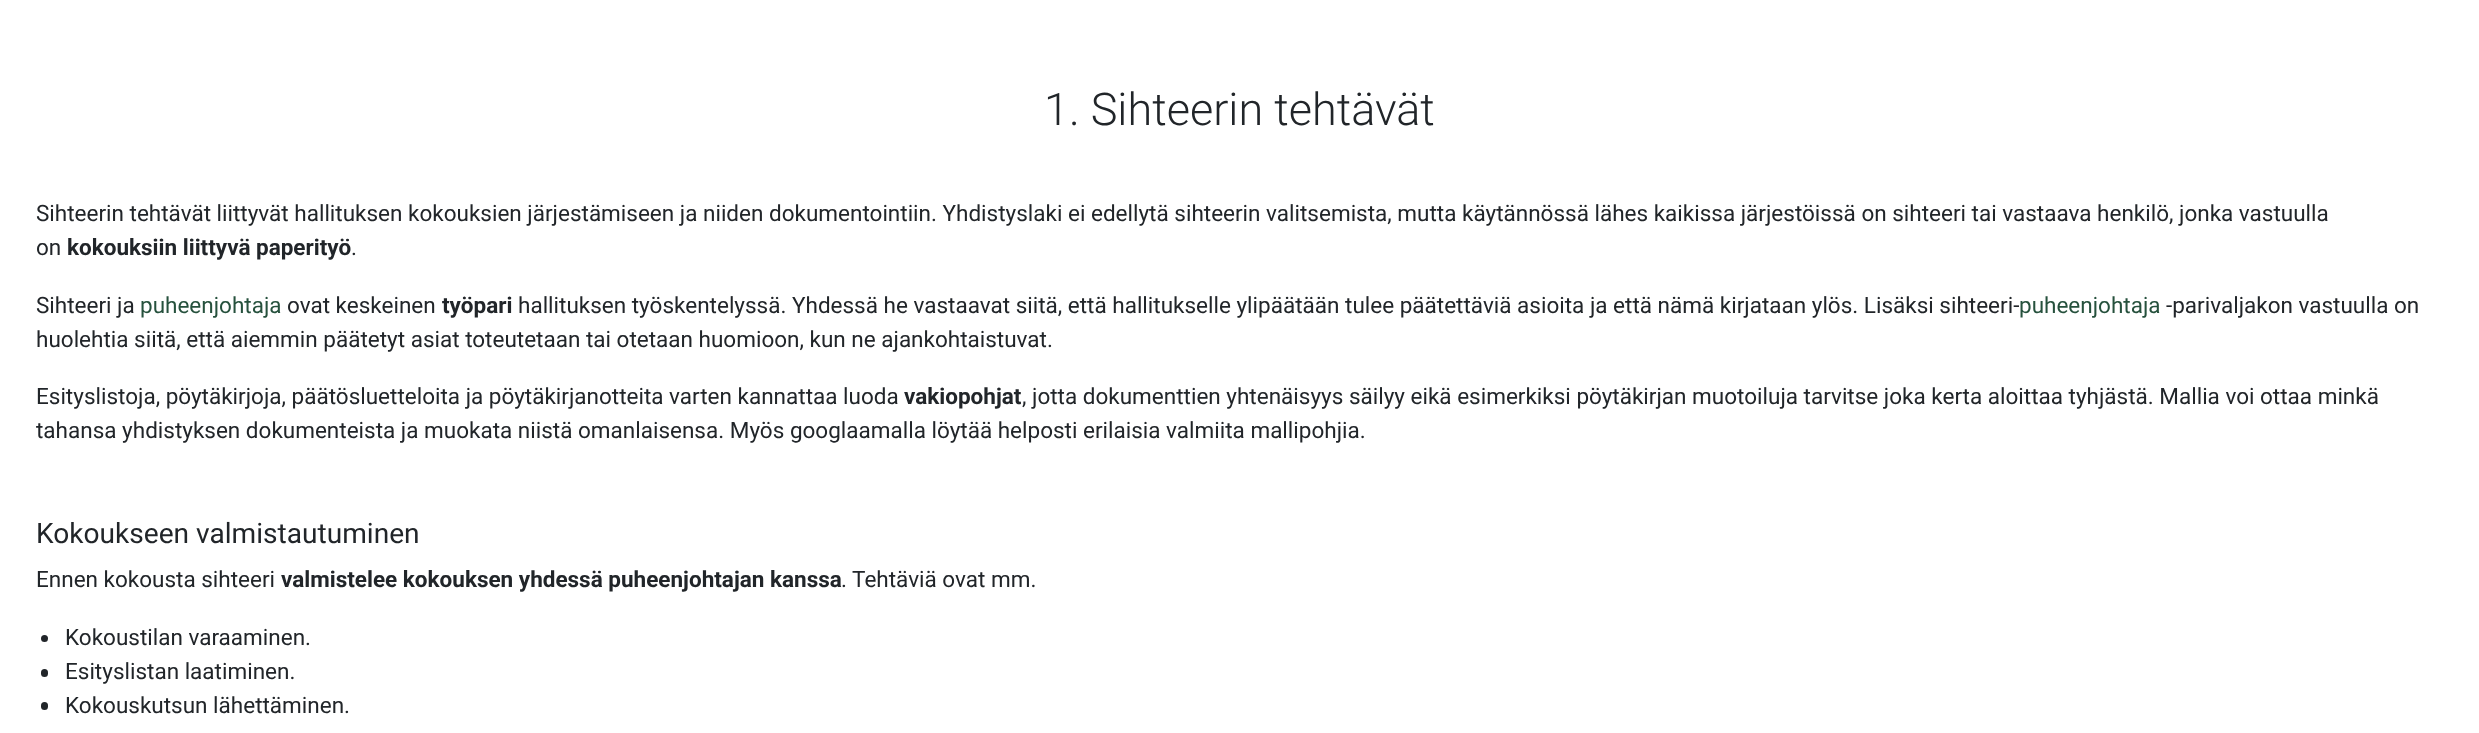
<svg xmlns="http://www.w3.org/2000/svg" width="2479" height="733">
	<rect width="100%" height="100%" fill="#FFFFFF" />
	<text x="1044" y="125" font-family="Roboto" font-size="45" font-weight="300" fill="#212529">1. Sihteerin tehtävät</text>
	<g font-family="Roboto" font-size="22.5" fill="#212529">
		<text x="36" y="221">Sihteerin tehtävät liittyvät hallituksen kokouksien järjestämiseen ja niiden dokumentointiin. Yhdistyslaki ei edellytä sihteerin valitsemista, mutta käytännössä lähes kaikissa järjestöissä on sihteeri tai vastaava henkilö, jonka vastuulla</text>
		<text x="36" y="255">on</text>
	</g>
	<text x="67" y="255" font-family="Roboto" font-size="22.5" font-weight="700" fill="#212529">kokouksiin liittyvä paperityö</text>
	<g font-family="Roboto" font-size="22.5" fill="#212529">
		<text x="351" y="255">.</text>
		<text x="36" y="313">Sihteeri ja</text>
	</g>
	<text x="140" y="313" font-family="Roboto" font-size="22.5" fill="#26513D">puheenjohtaja</text>
	<text x="287" y="313" font-family="Roboto" font-size="22.5" fill="#212529">ovat keskeinen</text>
	<text x="442" y="313" font-family="Roboto" font-size="22.5" font-weight="700" fill="#212529">työpari</text>
	<text x="518" y="313" font-family="Roboto" font-size="22.5" fill="#212529">hallituksen työskentelyssä. Yhdessä he vastaavat siitä, että hallitukselle ylipäätään tulee päätettäviä asioita ja että nämä kirjataan ylös. Lisäksi sihteeri-</text>
	<text x="2019" y="313" font-family="Roboto" font-size="22.5" fill="#26513D">puheenjohtaja</text>
	<g font-family="Roboto" font-size="22.5" fill="#212529">
		<text x="2166" y="313">-parivaljakon vastuulla on</text>
		<text x="36" y="347">huolehtia siitä, että aiemmin päätetyt asiat toteutetaan tai otetaan huomioon, kun ne ajankohtaistuvat.</text>
		<text x="36" y="404">Esityslistoja, pöytäkirjoja, päätösluetteloita ja pöytäkirjanotteita varten kannattaa luoda</text>
	</g>
	<text x="904" y="404" font-family="Roboto" font-size="22.5" font-weight="700" fill="#212529">vakiopohjat</text>
	<g font-family="Roboto" font-size="22.5" fill="#212529">
		<text x="1022" y="404">, jotta dokumenttien yhtenäisyys säilyy eikä esimerkiksi pöytäkirjan muotoiluja tarvitse joka kerta aloittaa tyhjästä. Mallia voi ottaa minkä</text>
		<text x="36" y="438">tahansa yhdistyksen dokumenteista ja muokata niistä omanlaisensa. Myös googlaamalla löytää helposti erilaisia valmiita mallipohjia.</text>
	</g>
	<text x="36" y="543" font-family="Roboto" font-size="28.1" fill="#212529">Kokoukseen valmistautuminen</text>
	<text x="36" y="587" font-family="Roboto" font-size="22.5" fill="#212529">Ennen kokousta sihteeri</text>
	<text x="281" y="587" font-family="Roboto" font-size="22.5" font-weight="700" fill="#212529">valmistelee kokouksen yhdessä puheenjohtajan kanssa</text>
	<text x="841" y="587" font-family="Roboto" font-size="22.5" fill="#212529">. Tehtäviä ovat mm.</text>
	<circle cx="44.5" cy="638.5" r="3.5" fill="#212529" />
	<text x="65" y="645" font-family="Roboto" font-size="22.5" fill="#212529">Kokoustilan varaaminen.</text>
	<rect x="41" y="669" width="7" height="8" rx="3.5" fill="#212529" />
	<text x="65" y="679" font-family="Roboto" font-size="22.5" fill="#212529">Esityslistan laatiminen.</text>
	<rect x="41" y="702" width="7" height="8" rx="3.5" fill="#212529" />
	<text x="65" y="713" font-family="Roboto" font-size="22.5" fill="#212529">Kokouskutsun lähettäminen.</text>
</svg>
